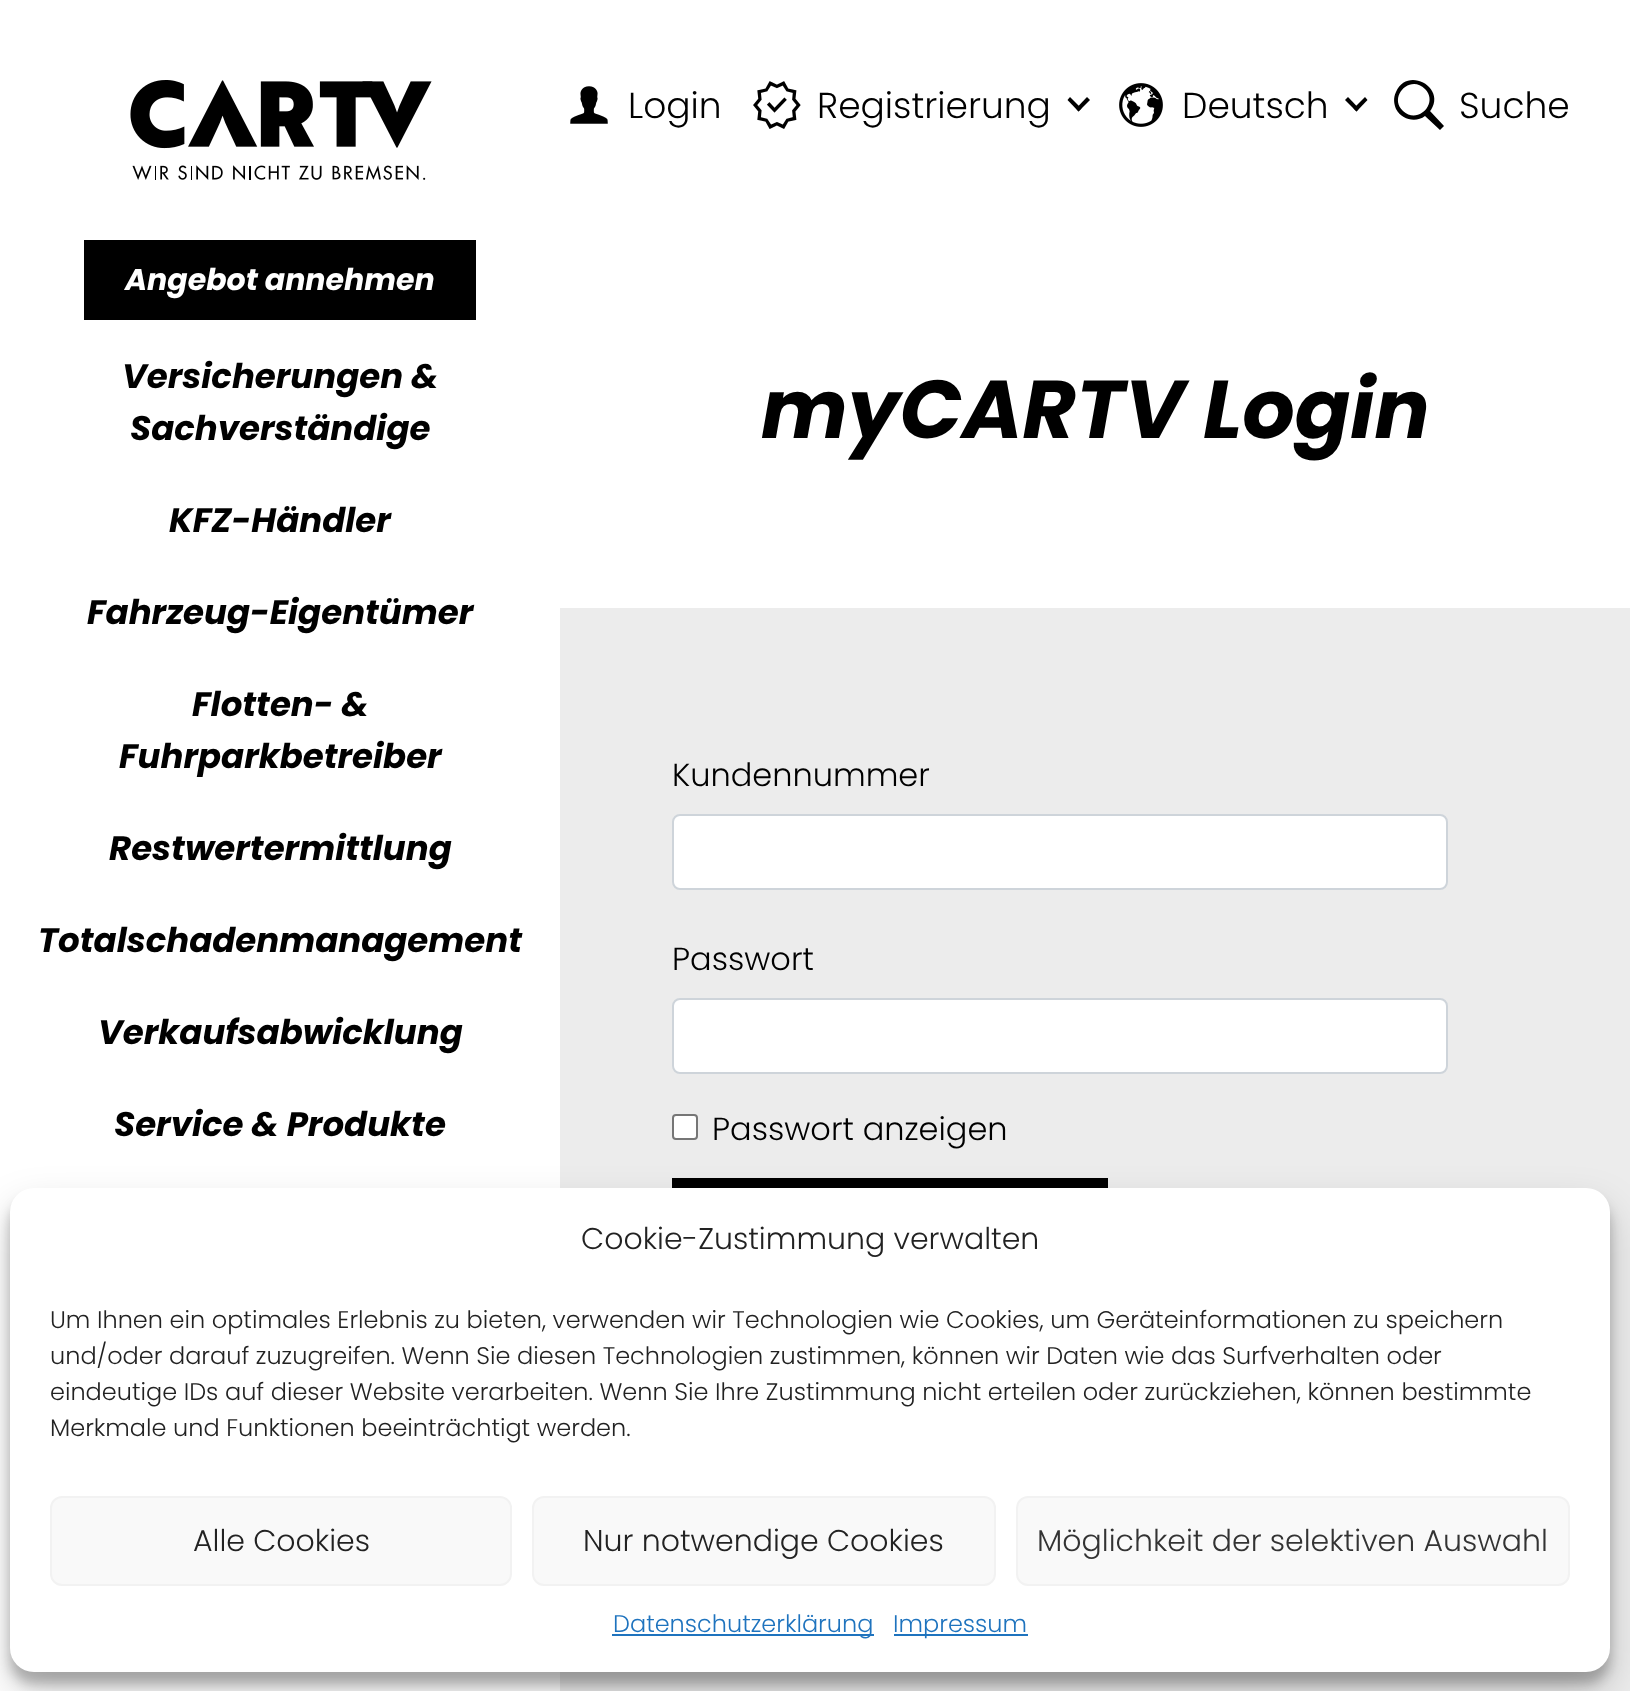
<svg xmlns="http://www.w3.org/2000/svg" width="1630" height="1691">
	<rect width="100%" height="100%" fill="#ECECEC" />
	<rect x="560" y="0" width="1070" height="608" fill="#FFFFFF" />
	<image x="570" y="86" width="38" height="38" href="assets/img1.png" />
	<text x="628" y="118" font-family="Poppins" font-size="36" font-weight="300" fill="#000000">Login</text>
	<image x="753" y="81" width="48" height="48" href="assets/img2.png" />
	<text x="817" y="118" font-family="Poppins" font-size="36" font-weight="300" fill="#000000">Registrierung</text>
	<path d="M1087 97L1090 100L1078.5 111.5L1076 108.5Z" fill="#000000" />
	<path d="M1070 97L1081.5 108.5L1078.5 111.5L1067.5 100Z" fill="#000000" />
	<image x="1119" y="83" width="44" height="44" href="assets/img3.png" />
	<text x="1182" y="118" font-family="Poppins" font-size="36" font-weight="300" fill="#000000">Deutsch</text>
	<path d="M1365 97L1367.5 100L1356.5 111.5L1353.5 108.5Z" fill="#000000" />
	<path d="M1348 97L1359 108.5L1356.5 111.5L1345 100Z" fill="#000000" />
	<path d="M1431 110C1446 87 1407 66 1396 92C1393 98 1394 104 1396 109C1402 120 1416 123 1425 116L1440 130L1444 126L1430 111ZM1425 89C1439 103 1418 125 1403 111C1388 97 1410 74 1425 89Z" fill="#000000" />
	<text x="1459" y="118" font-family="Poppins" font-size="36" font-weight="300" fill="#000000">Suche</text>
	<rect x="0" y="0" width="560" height="1691" fill="#FFFFFF" />
	<image x="130" y="80" width="302" height="100" href="assets/img4.png" />
	<rect x="84" y="240" width="392" height="80" fill="#000000" />
	<text x="125" y="290" font-family="Poppins" font-size="30" font-weight="700" font-style="italic" fill="#FFFFFF">Angebot annehmen</text>
	<g font-family="Poppins" font-size="34" font-weight="700" font-style="italic" fill="#000000">
		<text x="122" y="388">Versicherungen &amp;</text>
		<text x="130" y="440">Sachverständige</text>
		<text x="169" y="532">KFZ-Händler</text>
		<text x="87" y="624">Fahrzeug-Eigentümer</text>
		<text x="192" y="716">Flotten- &amp;</text>
		<text x="119" y="768">Fuhrparkbetreiber</text>
		<text x="109" y="860">Restwertermittlung</text>
		<text x="38" y="952">Totalschadenmanagement</text>
		<text x="98" y="1044">Verkaufsabwicklung</text>
		<text x="114" y="1136">Service &amp; Produkte</text>
	</g>
	<text x="761" y="438" font-family="Poppins" font-size="82" font-weight="700" font-style="italic" fill="#000000">myCARTV Login</text>
	<text x="672" y="786" font-family="Poppins" font-size="32" font-weight="300" fill="#000000">Kundennummer</text>
	<rect x="673" y="815" width="774" height="74" rx="7" fill="#FFFFFF" stroke="#CED4DA" stroke-width="2" />
	<text x="672" y="970" font-family="Poppins" font-size="32" font-weight="300" fill="#000000">Passwort</text>
	<rect x="673" y="999" width="774" height="74" rx="7" fill="#FFFFFF" stroke="#CED4DA" stroke-width="2" />
	<rect x="673" y="1115" width="24" height="24" rx="3" fill="#FFFFFF" stroke="#767676" stroke-width="2" />
	<text x="712" y="1140" font-family="Poppins" font-size="32" font-weight="300" fill="#000000">Passwort anzeigen</text>
	<rect x="672" y="1178" width="436" height="10" fill="#000000" />
	<rect x="10" y="1200" width="1600" height="484" rx="24" fill="#000000" fill-opacity="0.23" filter="blur(6px)" />
	<rect x="10" y="1208" width="1600" height="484" rx="24" fill="#000000" fill-opacity="0.19" filter="blur(20px)" />
	<rect x="10" y="1188" width="1600" height="484" rx="24" fill="#FFFFFF" />
	<text x="581" y="1249" font-family="Poppins" font-size="30" font-weight="300" fill="#222222">Cookie-Zustimmung verwalten</text>
	<g font-family="Poppins" font-size="24" font-weight="300" fill="#222222">
		<text x="50" y="1328">Um Ihnen ein optimales Erlebnis zu bieten, verwenden wir Technologien wie Cookies, um Geräteinformationen zu speichern</text>
		<text x="50" y="1364">und/oder darauf zuzugreifen. Wenn Sie diesen Technologien zustimmen, können wir Daten wie das Surfverhalten oder</text>
		<text x="50" y="1400">eindeutige IDs auf dieser Website verarbeiten. Wenn Sie Ihre Zustimmung nicht erteilen oder zurückziehen, können bestimmte</text>
		<text x="50" y="1436">Merkmale und Funktionen beeinträchtigt werden.</text>
	</g>
	<rect x="51" y="1497" width="460" height="88" rx="11" fill="#F9F9F9" stroke="#F2F2F2" stroke-width="2" />
	<text x="193" y="1551" font-family="Poppins" font-size="30" font-weight="300" fill="#222222">Alle Cookies</text>
	<rect x="533" y="1497" width="462" height="88" rx="11" fill="#F9F9F9" stroke="#F2F2F2" stroke-width="2" />
	<text x="583" y="1551" font-family="Poppins" font-size="30" font-weight="300" fill="#222222">Nur notwendige Cookies</text>
	<rect x="1017" y="1497" width="552" height="88" rx="11" fill="#F9F9F9" stroke="#F2F2F2" stroke-width="2" />
	<text x="1037" y="1551" font-family="Poppins" font-size="30" font-weight="300" fill="#333333">Möglichkeit der selektiven Auswahl</text>
	<rect x="612" y="1634" width="262" height="2" fill="#1E73BE" />
	<text x="613" y="1632" font-family="Poppins" font-size="24" font-weight="300" fill="#1E73BE">Datenschutzerklärung</text>
	<rect x="894" y="1634" width="134" height="2" fill="#1E73BE" />
	<text x="893" y="1632" font-family="Poppins" font-size="24" font-weight="300" fill="#1E73BE">Impressum</text>
</svg>
